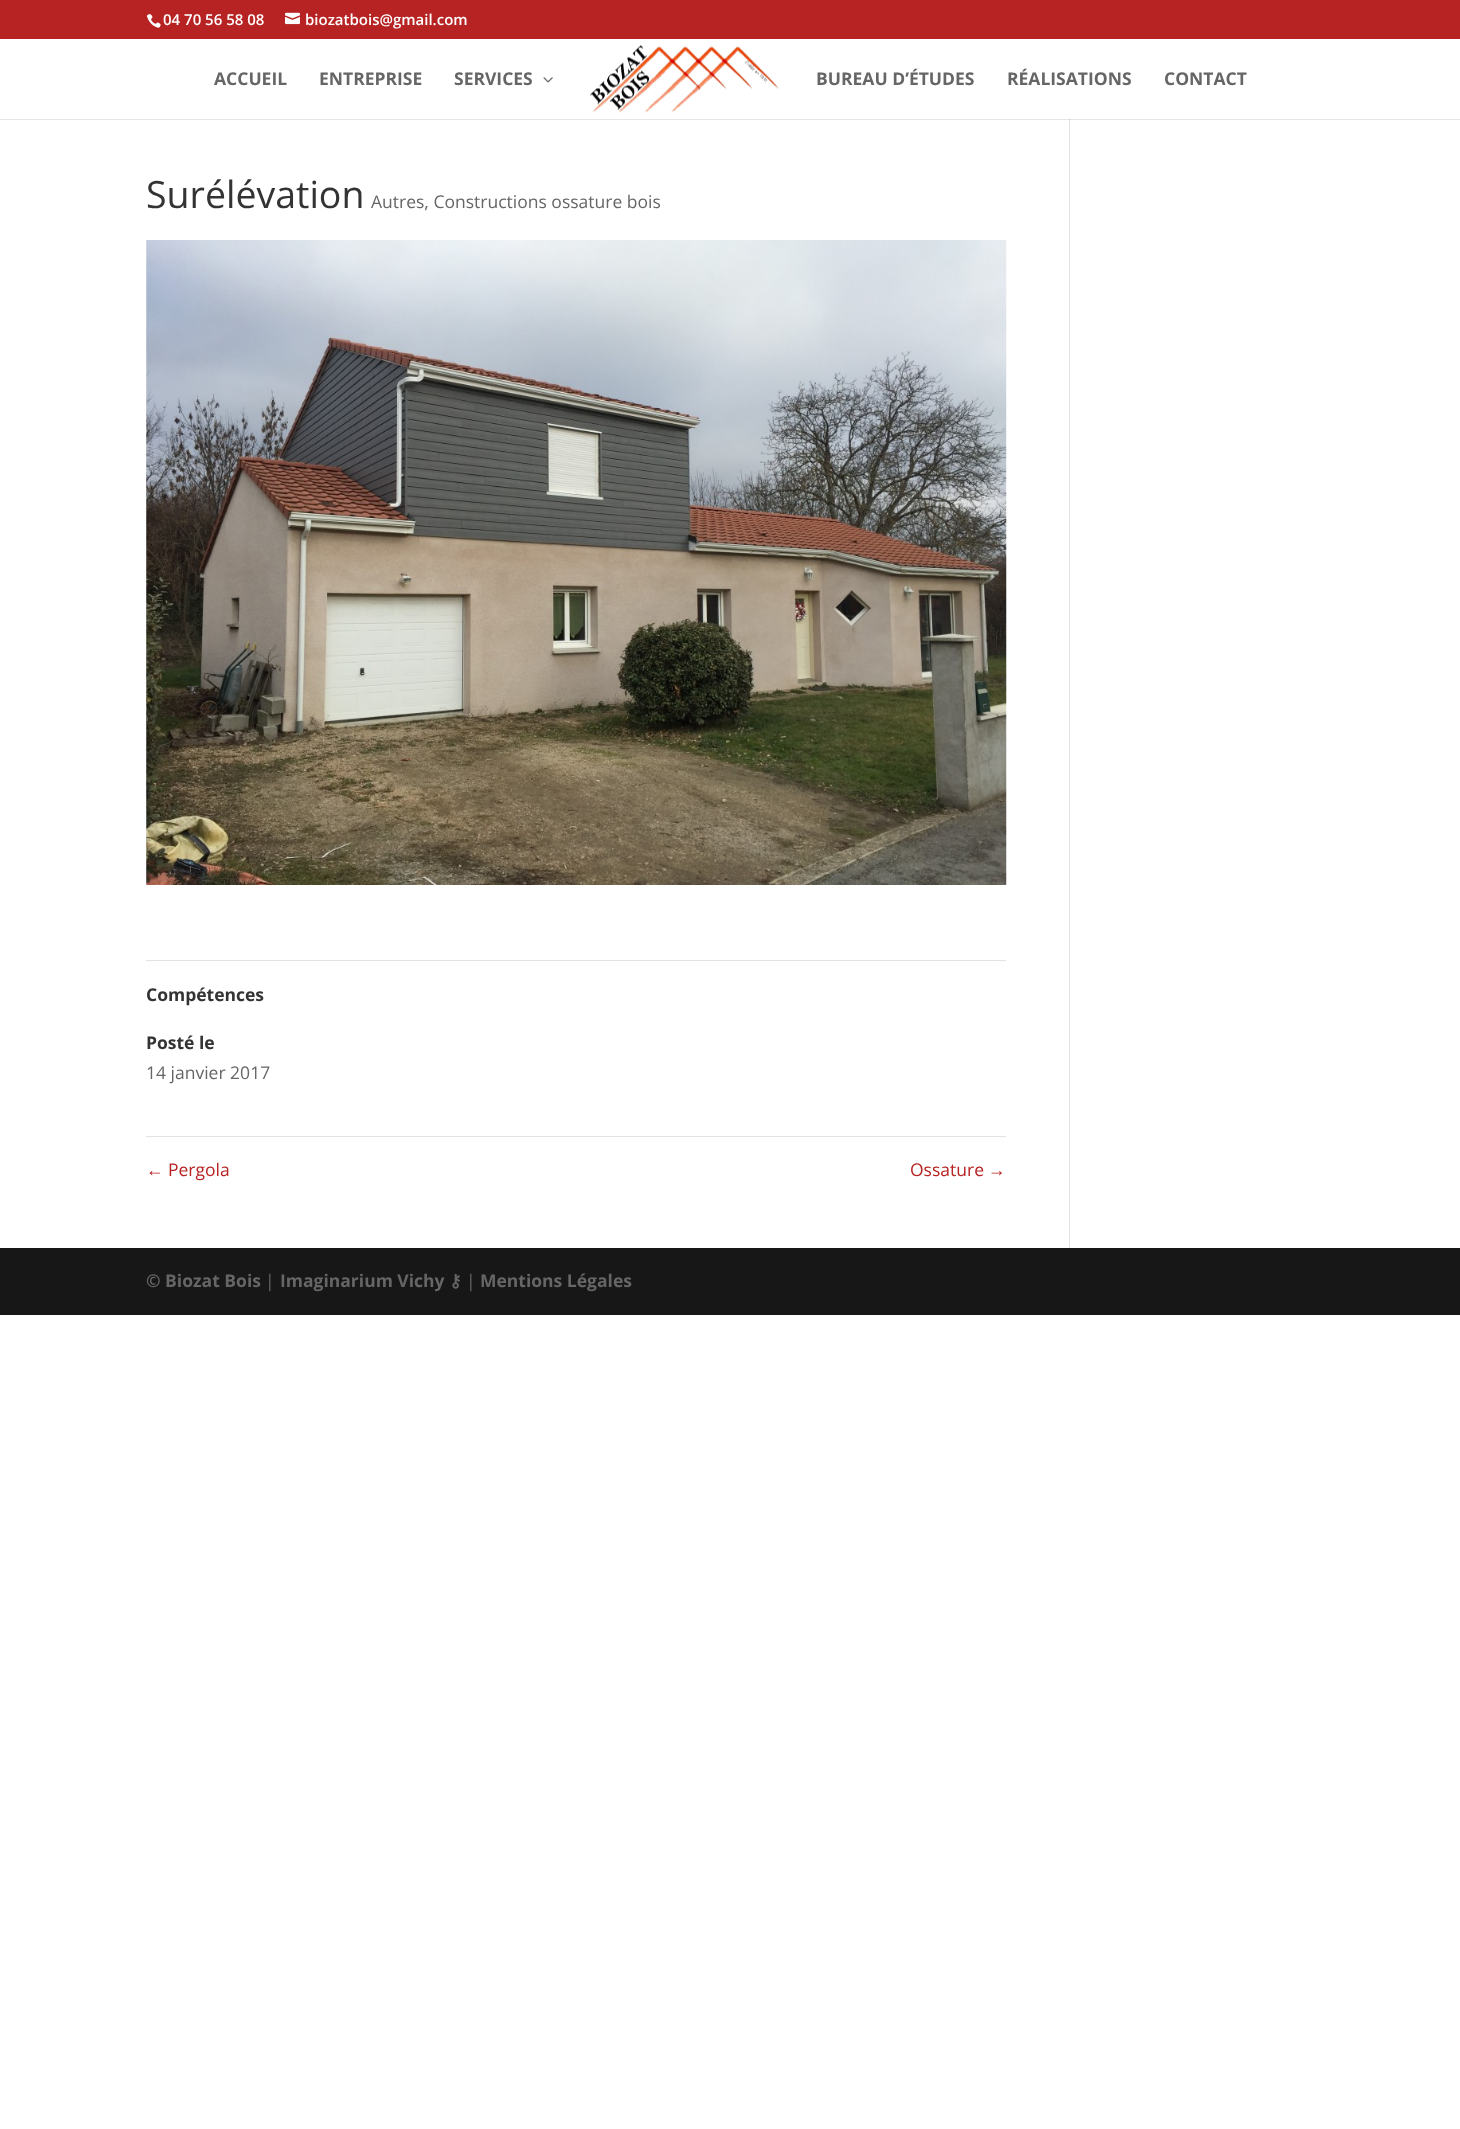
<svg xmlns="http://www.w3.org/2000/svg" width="1460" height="2129">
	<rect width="100%" height="100%" fill="#FFFFFF" />
	<rect x="0" y="119" width="1460" height="1" fill="#E6E6E6" />
	<rect x="0" y="0" width="1460" height="39" fill="#B72222" />
	<image x="146" y="14" width="15" height="14" href="assets/img1.png" />
	<text x="163" y="25" font-family="Open Sans" font-size="15" font-weight="600" fill="#FFFFFF">04 70 56 58 08</text>
	<image x="285" y="12" width="15" height="13" href="assets/img2.png" />
	<text x="305" y="25" font-family="Open Sans" font-size="15" font-weight="600" fill="#FFFFFF">biozatbois@gmail.com</text>
	<g font-family="Open Sans" font-size="17.5" font-weight="700" fill="#666666">
		<text x="214" y="85">ACCUEIL</text>
		<text x="319" y="85">ENTREPRISE</text>
		<text x="454" y="85">SERVICES</text>
	</g>
	<image x="543" y="77" width="10" height="6" href="assets/img3.png" />
	<image x="590" y="45" width="189" height="68" href="assets/img4.png" />
	<g font-family="Open Sans" font-size="17.5" font-weight="700" fill="#666666">
		<text x="816" y="85">BUREAU D’ÉTUDES</text>
		<text x="1007" y="85">RÉALISATIONS</text>
		<text x="1164" y="85">CONTACT</text>
	</g>
	<text x="146" y="208" font-family="Open Sans" font-size="37.5" fill="#333333">Surélévation</text>
	<text x="371" y="208" font-family="Open Sans" font-size="17.5" fill="#666666">Autres, Constructions ossature bois</text>
	<image x="146" y="240" width="861" height="645" href="assets/img5.png" />
	<rect x="146" y="960" width="860" height="1" fill="#E2E2E2" />
	<rect x="146" y="1136" width="860" height="1" fill="#E2E2E2" />
	<g font-family="Open Sans" font-size="17.5" font-weight="700" fill="#333333">
		<text x="146" y="1001">Compétences</text>
		<text x="146" y="1049">Posté le</text>
	</g>
	<text x="146" y="1079" font-family="Open Sans" font-size="17.5" fill="#666666">14 janvier 2017</text>
	<text x="146" y="1176" font-family="Liberation Sans" font-size="17.5" fill="#B72222">←</text>
	<g font-family="Open Sans" font-size="17.5" fill="#B72222">
		<text x="168" y="1176">Pergola</text>
		<text x="910" y="1176">Ossature</text>
	</g>
	<text x="988" y="1176" font-family="Liberation Sans" font-size="17.5" fill="#B72222">→</text>
	<rect x="1069" y="120" width="1" height="1128" fill="#E2E2E2" />
	<rect x="1069" y="119" width="1" height="1" fill="#CBCBCB" />
	<rect x="0" y="1248" width="1460" height="67" fill="#171717" />
	<text x="146" y="1287" font-family="Open Sans" font-size="17.5" font-weight="700" fill="#666666">© Biozat Bois</text>
	<text x="265" y="1287" font-family="Open Sans" font-size="17.5" fill="#666666">|</text>
	<text x="280" y="1287" font-family="Open Sans" font-size="17.5" font-weight="700" fill="#666666">Imaginarium Vichy</text>
	<text x="449" y="1287" font-family="DejaVu Sans" font-size="17.5" font-weight="700" fill="#666666">⚷</text>
	<text x="466" y="1287" font-family="Open Sans" font-size="17.5" fill="#666666">|</text>
	<text x="480" y="1287" font-family="Open Sans" font-size="17.5" font-weight="700" fill="#666666">Mentions Légales</text>
</svg>
